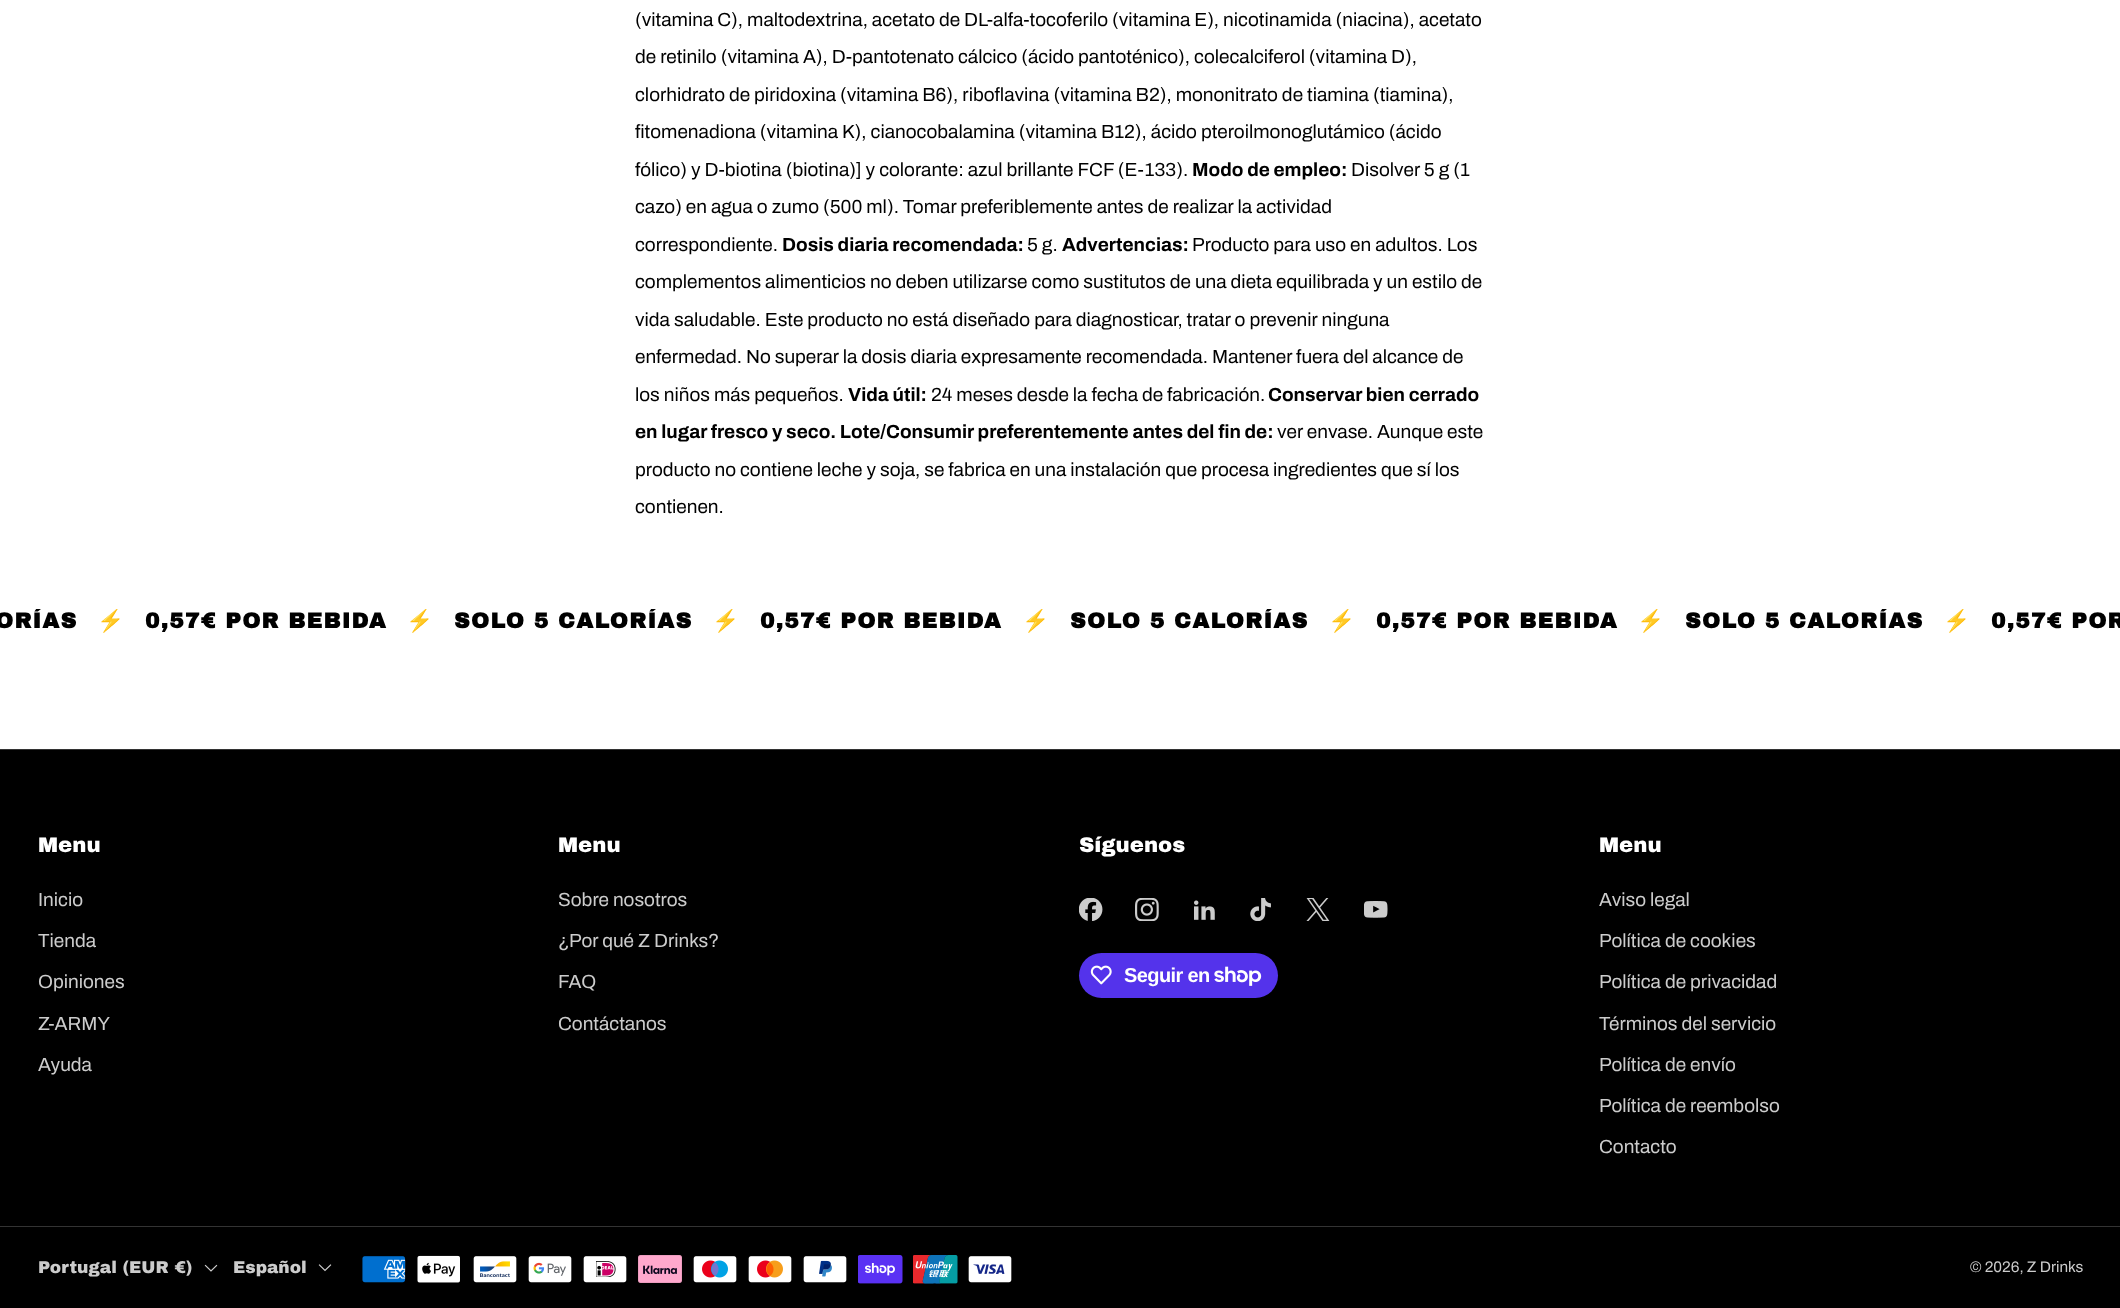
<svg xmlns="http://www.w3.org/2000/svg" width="2120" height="1308">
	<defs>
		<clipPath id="clip1"><rect x="0" y="609" width="2120" height="27" /></clipPath>
	</defs>
	<rect width="100%" height="100%" fill="#FFFFFF" />
	<g font-family="Archivo" font-size="19" fill="#000000">
		<text x="635" y="26">(vitamina C), maltodextrina, acetato de DL-alfa-tocoferilo (vitamina E), nicotinamida (niacina), acetato</text>
		<text x="635" y="63">de retinilo (vitamina A), D-pantotenato cálcico (ácido pantoténico), colecalciferol (vitamina D),</text>
		<text x="635" y="101">clorhidrato de piridoxina (vitamina B6), riboflavina (vitamina B2), mononitrato de tiamina (tiamina),</text>
		<text x="635" y="138">fitomenadiona (vitamina K), cianocobalamina (vitamina B12), ácido pteroilmonoglutámico (ácido</text>
		<text x="635" y="176">fólico) y D-biotina (biotina)] y colorante: azul brillante FCF (E-133).</text>
	</g>
	<text x="1192" y="176" font-family="Archivo" font-size="19" font-weight="700" fill="#000000">Modo de empleo:</text>
	<g font-family="Archivo" font-size="19" fill="#000000">
		<text x="1351" y="176">Disolver 5 g (1</text>
		<text x="635" y="213">cazo) en agua o zumo (500 ml). Tomar preferiblemente antes de realizar la actividad</text>
		<text x="635" y="251">correspondiente.</text>
	</g>
	<text x="782" y="251" font-family="Archivo" font-size="19" font-weight="700" fill="#000000">Dosis diaria recomendada:</text>
	<text x="1027" y="251" font-family="Archivo" font-size="19" fill="#000000">5 g.</text>
	<text x="1062" y="251" font-family="Archivo" font-size="19" font-weight="700" fill="#000000">Advertencias:</text>
	<g font-family="Archivo" font-size="19" fill="#000000">
		<text x="1192" y="251">Producto para uso en adultos. Los</text>
		<text x="635" y="288">complementos alimenticios no deben utilizarse como sustitutos de una dieta equilibrada y un estilo de</text>
		<text x="635" y="326">vida saludable. Este producto no está diseñado para diagnosticar, tratar o prevenir ninguna</text>
		<text x="635" y="363">enfermedad. No superar la dosis diaria expresamente recomendada. Mantener fuera del alcance de</text>
		<text x="635" y="401">los niños más pequeños.</text>
	</g>
	<text x="848" y="401" font-family="Archivo" font-size="19" font-weight="700" fill="#000000">Vida útil:</text>
	<text x="931" y="401" font-family="Archivo" font-size="19" fill="#000000">24 meses desde la fecha de fabricación.</text>
	<g font-family="Archivo" font-size="19" font-weight="700" fill="#000000">
		<text x="1268" y="401">Conservar bien cerrado</text>
		<text x="635" y="438">en lugar fresco y seco. Lote/Consumir preferentemente antes del fin de:</text>
	</g>
	<g font-family="Archivo" font-size="19" fill="#000000">
		<text x="1277" y="438">ver envase. Aunque este</text>
		<text x="635" y="476">producto no contiene leche y soja, se fabrica en una instalación que procesa ingredientes que sí los</text>
		<text x="635" y="513">contienen.</text>
	</g>
	<g clip-path="url(#clip1)">
		<text x="-5" y="628" font-family="Archivo Black" font-size="21.8" font-weight="700" letter-spacing="1.25" fill="#000000">ORÍAS</text>
		<text x="97" y="628" font-family="Noto Color Emoji" font-size="21.8" font-weight="700" letter-spacing="1.25" fill="#000000">⚡️</text>
	</g>
	<text x="145" y="628" font-family="Archivo Black" font-size="21.8" font-weight="700" letter-spacing="1.25" fill="#000000">0,57€ POR BEBIDA</text>
	<g clip-path="url(#clip1)">
		<text x="406" y="628" font-family="Noto Color Emoji" font-size="21.8" font-weight="700" letter-spacing="1.25" fill="#000000">⚡️</text>
		<text x="454" y="628" font-family="Archivo Black" font-size="21.8" font-weight="700" letter-spacing="1.25" fill="#000000">SOLO 5 CALORÍAS</text>
		<text x="712" y="628" font-family="Noto Color Emoji" font-size="21.8" font-weight="700" letter-spacing="1.25" fill="#000000">⚡️</text>
	</g>
	<text x="760" y="628" font-family="Archivo Black" font-size="21.8" font-weight="700" letter-spacing="1.25" fill="#000000">0,57€ POR BEBIDA</text>
	<g clip-path="url(#clip1)">
		<text x="1022" y="628" font-family="Noto Color Emoji" font-size="21.8" font-weight="700" letter-spacing="1.25" fill="#000000">⚡️</text>
		<text x="1070" y="628" font-family="Archivo Black" font-size="21.8" font-weight="700" letter-spacing="1.25" fill="#000000">SOLO 5 CALORÍAS</text>
		<text x="1328" y="628" font-family="Noto Color Emoji" font-size="21.8" font-weight="700" letter-spacing="1.25" fill="#000000">⚡️</text>
	</g>
	<text x="1376" y="628" font-family="Archivo Black" font-size="21.8" font-weight="700" letter-spacing="1.25" fill="#000000">0,57€ POR BEBIDA</text>
	<g clip-path="url(#clip1)">
		<text x="1637" y="628" font-family="Noto Color Emoji" font-size="21.8" font-weight="700" letter-spacing="1.25" fill="#000000">⚡️</text>
		<text x="1685" y="628" font-family="Archivo Black" font-size="21.8" font-weight="700" letter-spacing="1.25" fill="#000000">SOLO 5 CALORÍAS</text>
		<text x="1943" y="628" font-family="Noto Color Emoji" font-size="21.8" font-weight="700" letter-spacing="1.25" fill="#000000">⚡️</text>
	</g>
	<text x="1991" y="628" font-family="Archivo Black" font-size="21.8" font-weight="700" letter-spacing="1.25" fill="#000000">0,57€ POR</text>
	<rect x="0" y="750" width="2120" height="558" fill="#000000" />
	<rect x="0" y="749" width="2120" height="1" fill="#333333" />
	<text x="38" y="852" font-family="Archivo Black" font-size="21.25" fill="#FFFFFF">Menu</text>
	<g font-family="Archivo" font-size="19" fill="#CCCCCC">
		<text x="38" y="906">Inicio</text>
		<text x="38" y="947">Tienda</text>
		<text x="38" y="988">Opiniones</text>
		<text x="38" y="1030">Z-ARMY</text>
		<text x="38" y="1071">Ayuda</text>
	</g>
	<text x="558" y="852" font-family="Archivo Black" font-size="21.25" fill="#FFFFFF">Menu</text>
	<g font-family="Archivo" font-size="19" fill="#CCCCCC">
		<text x="558" y="906">Sobre nosotros</text>
		<text x="558" y="947">¿Por qué Z Drinks?</text>
		<text x="558" y="988">FAQ</text>
		<text x="558" y="1030">Contáctanos</text>
	</g>
	<text x="1079" y="852" font-family="Archivo Black" font-size="21.25" fill="#FFFFFF">Síguenos</text>
	<image x="1079" y="898" width="24" height="23" href="assets/img1.png" />
	<image x="1135" y="898" width="24" height="23" href="assets/img2.png" />
	<image x="1194" y="900" width="21" height="20" href="assets/img3.png" />
	<image x="1250" y="898" width="21" height="23" href="assets/img4.png" />
	<image x="1306" y="898" width="24" height="23" href="assets/img5.png" />
	<image x="1364" y="901" width="24" height="17" href="assets/img6.png" />
	<rect x="1079" y="953" width="199" height="45" rx="22.5" fill="#5433EB" />
	<image x="1090" y="965" width="22" height="20" href="assets/img7.png" />
	<text x="1124" y="982" font-family="Liberation Sans" font-size="20" font-weight="700" letter-spacing="-0.6" fill="#FFFFFF">Seguir en</text>
	<image x="1214" y="966" width="48" height="20" href="assets/img8.png" />
	<text x="1599" y="852" font-family="Archivo Black" font-size="21.25" fill="#FFFFFF">Menu</text>
	<g font-family="Archivo" font-size="19" fill="#CCCCCC">
		<text x="1599" y="906">Aviso legal</text>
		<text x="1599" y="947">Política de cookies</text>
		<text x="1599" y="988">Política de privacidad</text>
		<text x="1599" y="1030">Términos del servicio</text>
		<text x="1599" y="1071">Política de envío</text>
		<text x="1599" y="1112">Política de reembolso</text>
		<text x="1599" y="1153">Contacto</text>
	</g>
	<rect x="0" y="1226" width="2120" height="1" fill="#333333" />
	<text x="38" y="1273" font-family="Archivo Black" font-size="17" fill="#CCCCCC">Portugal (EUR €)</text>
	<path d="M216.5 1265.5L211 1271L205.5 1265.5" fill="none" stroke="#CCCCCC" stroke-width="1.2" stroke-linecap="square" />
	<text x="233" y="1273" font-family="Archivo Black" font-size="17" fill="#CCCCCC">Español</text>
	<path d="M330.5 1265L325 1270.5L319.5 1265" fill="none" stroke="#CCCCCC" stroke-width="1.2" stroke-linecap="square" />
	<image x="362" y="1256" width="44" height="27" href="assets/img9.png" />
	<image x="417" y="1255" width="43" height="28" href="assets/img10.png" />
	<image x="473" y="1256" width="44" height="27" href="assets/img11.png" />
	<image x="528" y="1256" width="44" height="27" href="assets/img12.png" />
	<image x="583" y="1256" width="44" height="27" href="assets/img13.png" />
	<image x="638" y="1255" width="44" height="28" href="assets/img14.png" />
	<image x="693" y="1256" width="44" height="27" href="assets/img15.png" />
	<image x="748" y="1256" width="44" height="27" href="assets/img16.png" />
	<image x="803" y="1256" width="44" height="27" href="assets/img17.png" />
	<image x="858" y="1255" width="45" height="29" href="assets/img18.png" />
	<image x="913" y="1255" width="45" height="29" href="assets/img19.png" />
	<image x="968" y="1256" width="44" height="27" href="assets/img20.png" />
	<text x="1970" y="1272" font-family="Archivo" font-size="15.25" fill="#CCCCCC">© 2026, Z Drinks</text>
</svg>
